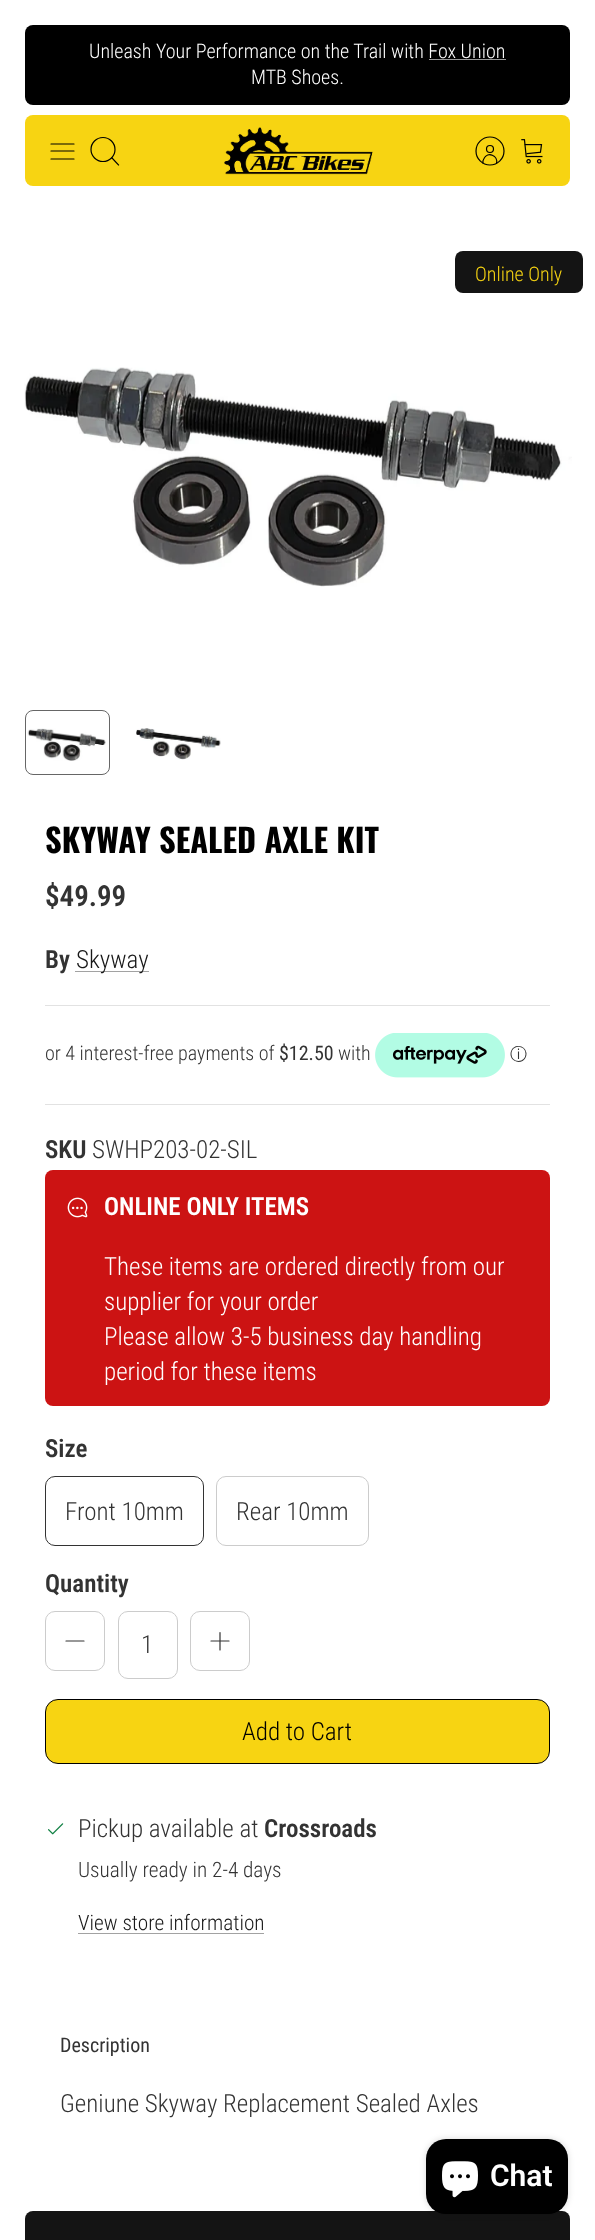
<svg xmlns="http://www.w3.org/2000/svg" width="595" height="2240">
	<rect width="100%" height="100%" fill="#FFFFFF" />
	<rect x="25" y="25" width="545" height="80" rx="8" fill="#000000" />
	<text x="89" y="58" font-family="Roboto Condensed" font-size="20" font-weight="300" fill="#FFFFFF">Unleash Your Performance on the Trail with Fox Union</text>
	<rect x="429" y="59" width="77" height="1" fill="#999999" />
	<text x="251" y="84" font-family="Roboto Condensed" font-size="20" font-weight="300" fill="#FFFFFF">MTB Shoes.</text>
	<rect x="25" y="115" width="545" height="71" rx="8" fill="#F7D412" />
	<path d="M51 151H74M51 144H74M51 159H74" fill="none" stroke="#000000" stroke-width="1.2" stroke-linecap="round" stroke-linejoin="round" />
	<circle cx="103" cy="149.5" r="12" fill="none" stroke="#000000" stroke-width="1.2" />
	<path d="M112 158L118.5 165" fill="none" stroke="#000000" stroke-width="1.2" stroke-linecap="square" />
	<image x="224" y="127" width="149" height="48" href="assets/img1.png" />
	<path d="M496.5 163.5C498.5 155.5 487.5 151 484 158.5C483 160 482.5 161.5 483 163.5" fill="none" stroke="#000000" stroke-width="1.2" />
	<circle cx="490" cy="149" r="3.5" fill="none" stroke="#000000" stroke-width="1.2" />
	<circle cx="490" cy="151" r="14" fill="none" stroke="#000000" stroke-width="1.2" />
	<image x="521" y="139" width="22" height="25" href="assets/img2.png" />
	<rect x="455" y="251" width="128" height="42" rx="8" fill="#141414" />
	<text x="475" y="281" font-family="Roboto Condensed" font-size="20" font-weight="300" fill="#F7D412">Online Only</text>
	<image x="24" y="367" width="548" height="220" href="assets/img3.png" />
	<image x="27" y="728" width="79" height="33" href="assets/img4.png" />
	<rect x="25.5" y="710.5" width="84" height="64" rx="7.5" fill="none" stroke="#666666" />
	<image x="136" y="728" width="85" height="32" href="assets/img5.png" />
	<text x="45" y="853" font-family="Oswald" font-size="32.5" font-weight="700" fill="#000000">SKYWAY SEALED AXLE KIT</text>
	<text x="45" y="906" font-family="Roboto Condensed" font-size="29" font-weight="600" fill="#333333">$49.99</text>
	<text x="45" y="968" font-family="Roboto Condensed" font-size="25" font-weight="600" fill="#333333">By</text>
	<rect x="75" y="971" width="74" height="1" fill="#A2A2A2" />
	<text x="76" y="968" font-family="Roboto Condensed" font-size="25" font-weight="300" fill="#171717">Skyway</text>
	<rect x="45" y="1005" width="505" height="1" fill="#E2E2E2" />
	<text x="45" y="1060" font-family="Roboto Condensed" font-size="20" font-weight="300" fill="#333333">or 4 interest-free payments of</text>
	<text x="279" y="1060" font-family="Roboto Condensed" font-size="20" fill="#333333">$12.50</text>
	<text x="338" y="1060" font-family="Roboto Condensed" font-size="20" font-weight="300" fill="#333333">with</text>
	<image x="375" y="1033" width="130" height="45" href="assets/img6.png" />
	<text x="510" y="1060" font-family="WenQuanYi Zen Hei" font-size="17" font-weight="500" fill="#333333">ⓘ</text>
	<rect x="45" y="1104" width="505" height="1" fill="#E2E2E2" />
	<text x="45" y="1158" font-family="Roboto Condensed" font-size="25" font-weight="600" fill="#333333">SKU</text>
	<text x="92" y="1158" font-family="Roboto Condensed" font-size="25" font-weight="300" fill="#333333">SWHP203-02-SIL</text>
	<rect x="45" y="1170" width="505" height="236" rx="8" fill="#CC1313" />
	<image x="67" y="1197" width="21" height="21" href="assets/img7.png" />
	<text x="104" y="1215" font-family="Roboto Condensed" font-size="25" font-weight="600" fill="#FFFFFF">ONLINE ONLY ITEMS</text>
	<g font-family="Roboto Condensed" font-size="25" font-weight="300" fill="#FFFFFF">
		<text x="104" y="1275">These items are ordered directly from our</text>
		<text x="104" y="1310">supplier for your order</text>
		<text x="104" y="1345">Please allow 3-5 business day handling</text>
		<text x="104" y="1380">period for these items</text>
	</g>
	<text x="45" y="1457" font-family="Roboto Condensed" font-size="25" font-weight="600" fill="#333333">Size</text>
	<rect x="45.5" y="1476.5" width="158" height="69" rx="9.5" fill="none" stroke="#333333" />
	<text x="65" y="1520" font-family="Roboto Condensed" font-size="25" font-weight="300" fill="#333333">Front 10mm</text>
	<rect x="216.5" y="1476.5" width="152" height="69" rx="9.5" fill="none" stroke="#CCCCCC" />
	<text x="236" y="1520" font-family="Roboto Condensed" font-size="25" font-weight="300" fill="#333333">Rear 10mm</text>
	<text x="45" y="1592" font-family="Roboto Condensed" font-size="25" font-weight="600" fill="#333333">Quantity</text>
	<rect x="45.5" y="1611.5" width="59" height="59" rx="9.5" fill="none" stroke="#CCCCCC" />
	<path d="M66 1641H84" fill="none" stroke="#333333" stroke-width="1.2" stroke-linecap="round" stroke-linejoin="round" />
	<rect x="118.5" y="1611.5" width="59" height="67" rx="9.5" fill="none" stroke="#CCCCCC" />
	<text x="141" y="1653" font-family="Roboto Condensed" font-size="25" font-weight="300" fill="#333333">1</text>
	<rect x="190.5" y="1611.5" width="59" height="59" rx="9.5" fill="none" stroke="#CCCCCC" />
	<path d="M220 1632.5V1650M211 1641H229" fill="none" stroke="#333333" stroke-width="1.2" stroke-linecap="round" stroke-linejoin="round" />
	<rect x="45.5" y="1699.5" width="504" height="64" rx="12.5" fill="#F7D412" stroke="#000000" />
	<text x="242" y="1740" font-family="Roboto Condensed" font-size="25" font-weight="300" fill="#000000">Add to Cart</text>
	<image x="48" y="1823" width="16" height="12" href="assets/img8.png" />
	<text x="78" y="1837" font-family="Roboto Condensed" font-size="25" font-weight="300" fill="#333333">Pickup available at</text>
	<text x="264" y="1837" font-family="Roboto Condensed" font-size="25" font-weight="600" fill="#333333">Crossroads</text>
	<text x="78" y="1877" font-family="Roboto Condensed" font-size="21.25" font-weight="300" fill="#333333">Usually ready in 2-4 days</text>
	<text x="78" y="1930" font-family="Roboto Condensed" font-size="21.25" font-weight="300" fill="#171717">View store information</text>
	<rect x="78" y="1933" width="186" height="1" fill="#A2A2A2" />
	<text x="60" y="2052" font-family="Roboto Condensed" font-size="20" fill="#333333">Description</text>
	<text x="60" y="2112" font-family="Roboto Condensed" font-size="25" font-weight="300" fill="#333333">Geniune Skyway Replacement Sealed Axles</text>
	<rect x="25" y="2211" width="545" height="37" rx="8" fill="#141414" />
	<rect x="426" y="2139" width="142" height="75" rx="20" fill="#000000" fill-opacity="0.15" filter="blur(3px)" />
	<rect x="426" y="2139" width="142" height="75" rx="20" fill="#000000" />
	<image x="442" y="2161" width="36" height="37" href="assets/img9.png" />
	<text x="490" y="2186" font-family="Roboto" font-size="30" font-weight="600" fill="#FFFFFF">Chat</text>
</svg>
